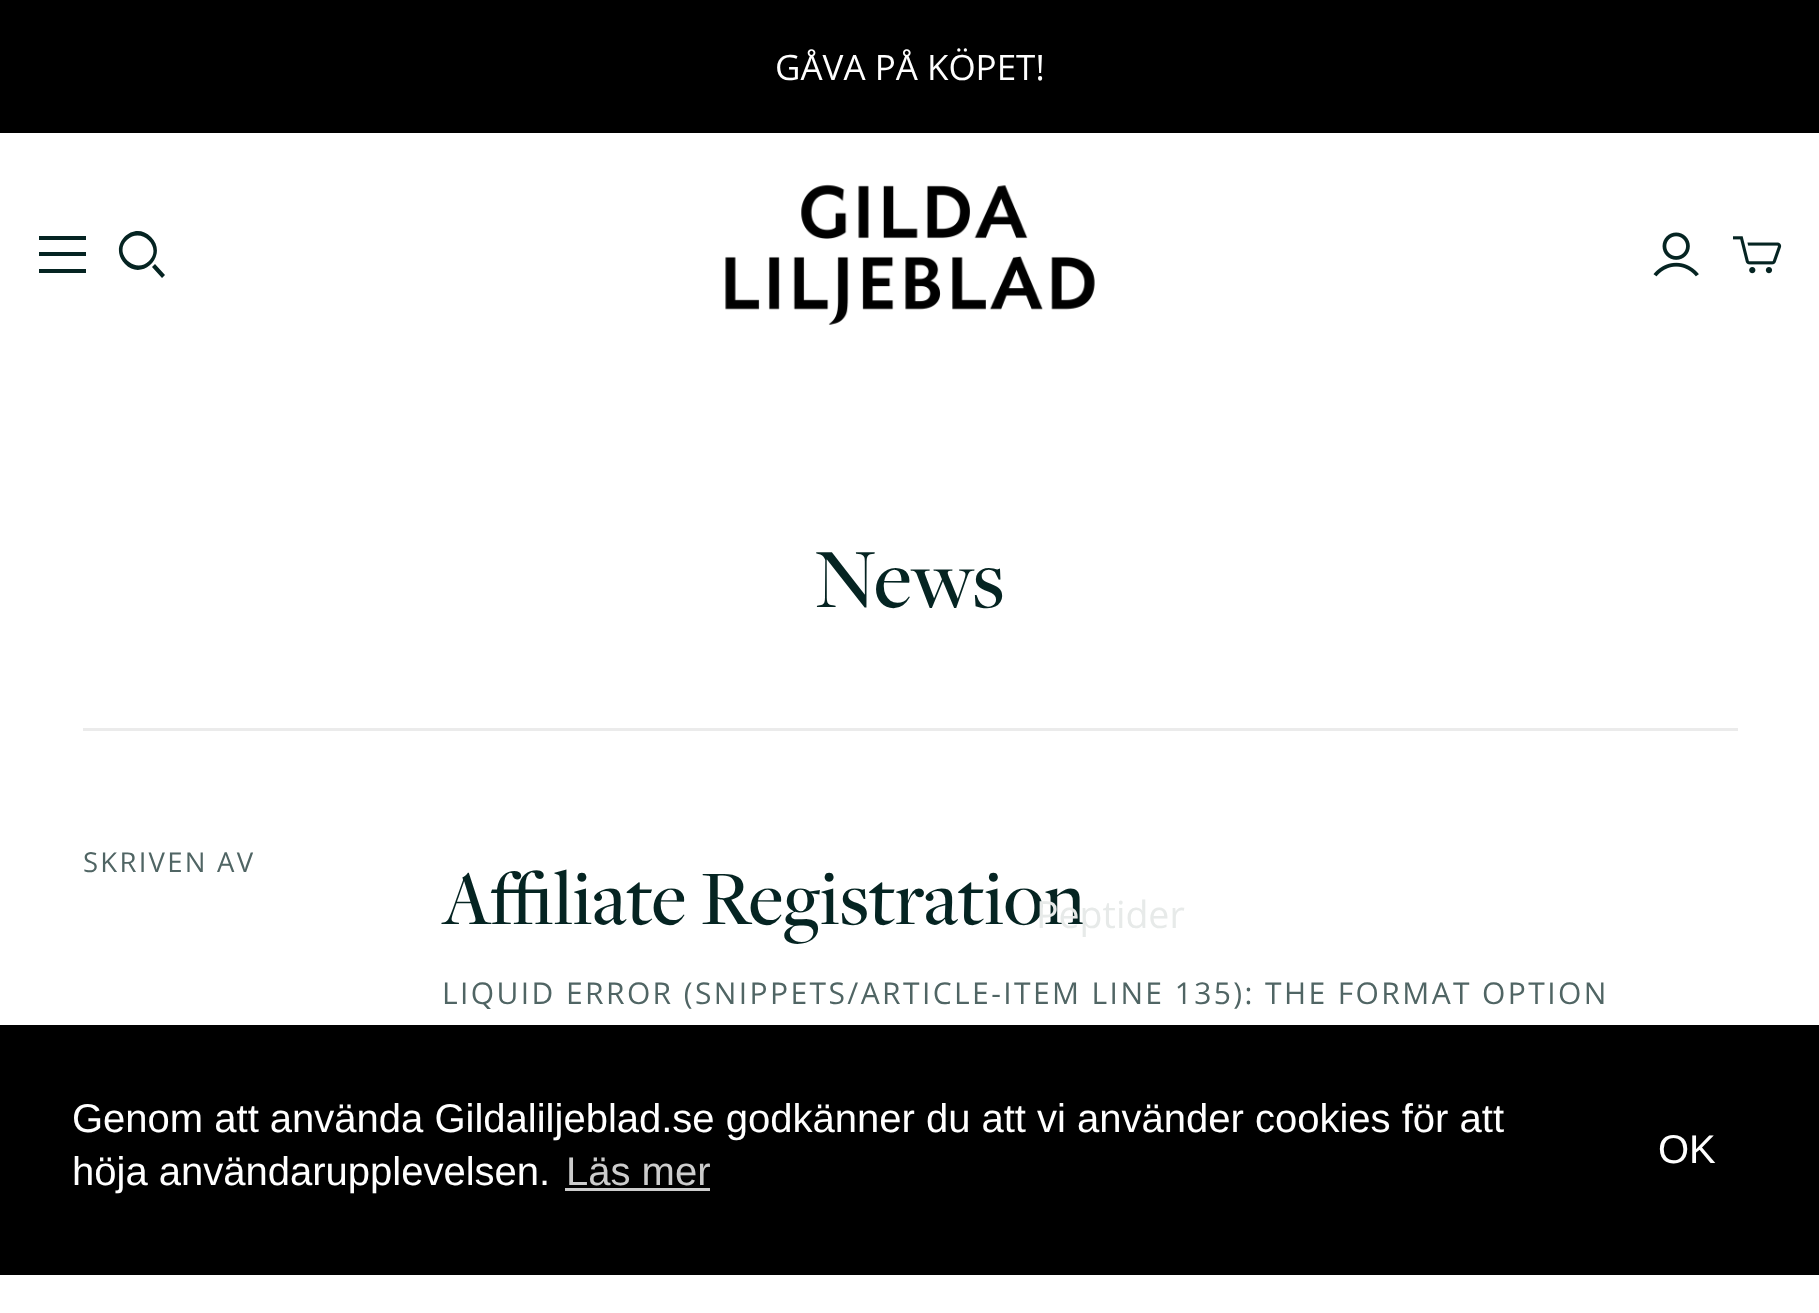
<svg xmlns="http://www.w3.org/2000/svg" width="1819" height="1313">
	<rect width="100%" height="100%" fill="#FFFFFF" />
	<rect x="0" y="0" width="1819" height="133" fill="#000000" />
	<text x="775" y="80" font-family="Open Sans" font-size="35" fill="#FFFFFF">GÅVA PÅ KÖPET!</text>
	<rect x="83" y="728" width="1655" height="3" fill="#EBEBEB" />
	<text x="815" y="607" font-family="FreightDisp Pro" font-size="87.5" font-weight="500" fill="#052422">News</text>
	<text x="83" y="872" font-family="Open Sans" font-size="27.5" letter-spacing="2.25" fill="#506564">SKRIVEN AV</text>
	<text x="442" y="924" font-family="FreightDisp Pro" font-size="80" font-weight="500" fill="#052422">Affiliate Registration</text>
	<text x="442" y="1004" font-family="Open Sans" font-size="30" letter-spacing="2.4" fill="#506564">LIQUID ERROR (SNIPPETS/ARTICLE-ITEM LINE 135): THE FORMAT OPTION</text>
	<image x="725" y="184" width="370" height="141" href="assets/img1.png" />
	<path d="M86 240H39V236H86ZM86 256H39V252H86ZM39 273H86V269H39Z" fill="#052422" fill-rule="evenodd" />
	<path d="M127 240C113 253 135 275 149 261C163 247 141 226 127 240ZM125 264C107 246 133 219 151 237C169 255 142 282 125 264ZM162 278L152 267L155 264L165 275Z" fill="#052422" fill-rule="evenodd" />
	<image x="1653" y="232" width="46" height="45" href="assets/img2.png" />
	<image x="1733" y="236" width="49" height="38" href="assets/img3.png" />
	<text x="1036" y="928" font-family="Open Sans" font-size="37.5" fill="#E7EAE9">Peptider</text>
	<rect x="0" y="1025" width="1819" height="250" fill="#000000" />
	<g font-family="Liberation Sans" font-size="40" fill="#FFFFFF">
		<text x="72" y="1132">Genom att använda Gildaliljeblad.se godkänner du att vi använder cookies för att</text>
		<text x="72" y="1185">höja användarupplevelsen.</text>
	</g>
	<text x="566" y="1185" font-family="Liberation Sans" font-size="40" fill="#CCCCCC">Läs mer</text>
	<rect x="565" y="1188" width="145" height="3" fill="#CCCCCC" />
	<text x="1658" y="1163" font-family="Liberation Sans" font-size="40" fill="#FFFFFF">OK</text>
</svg>
